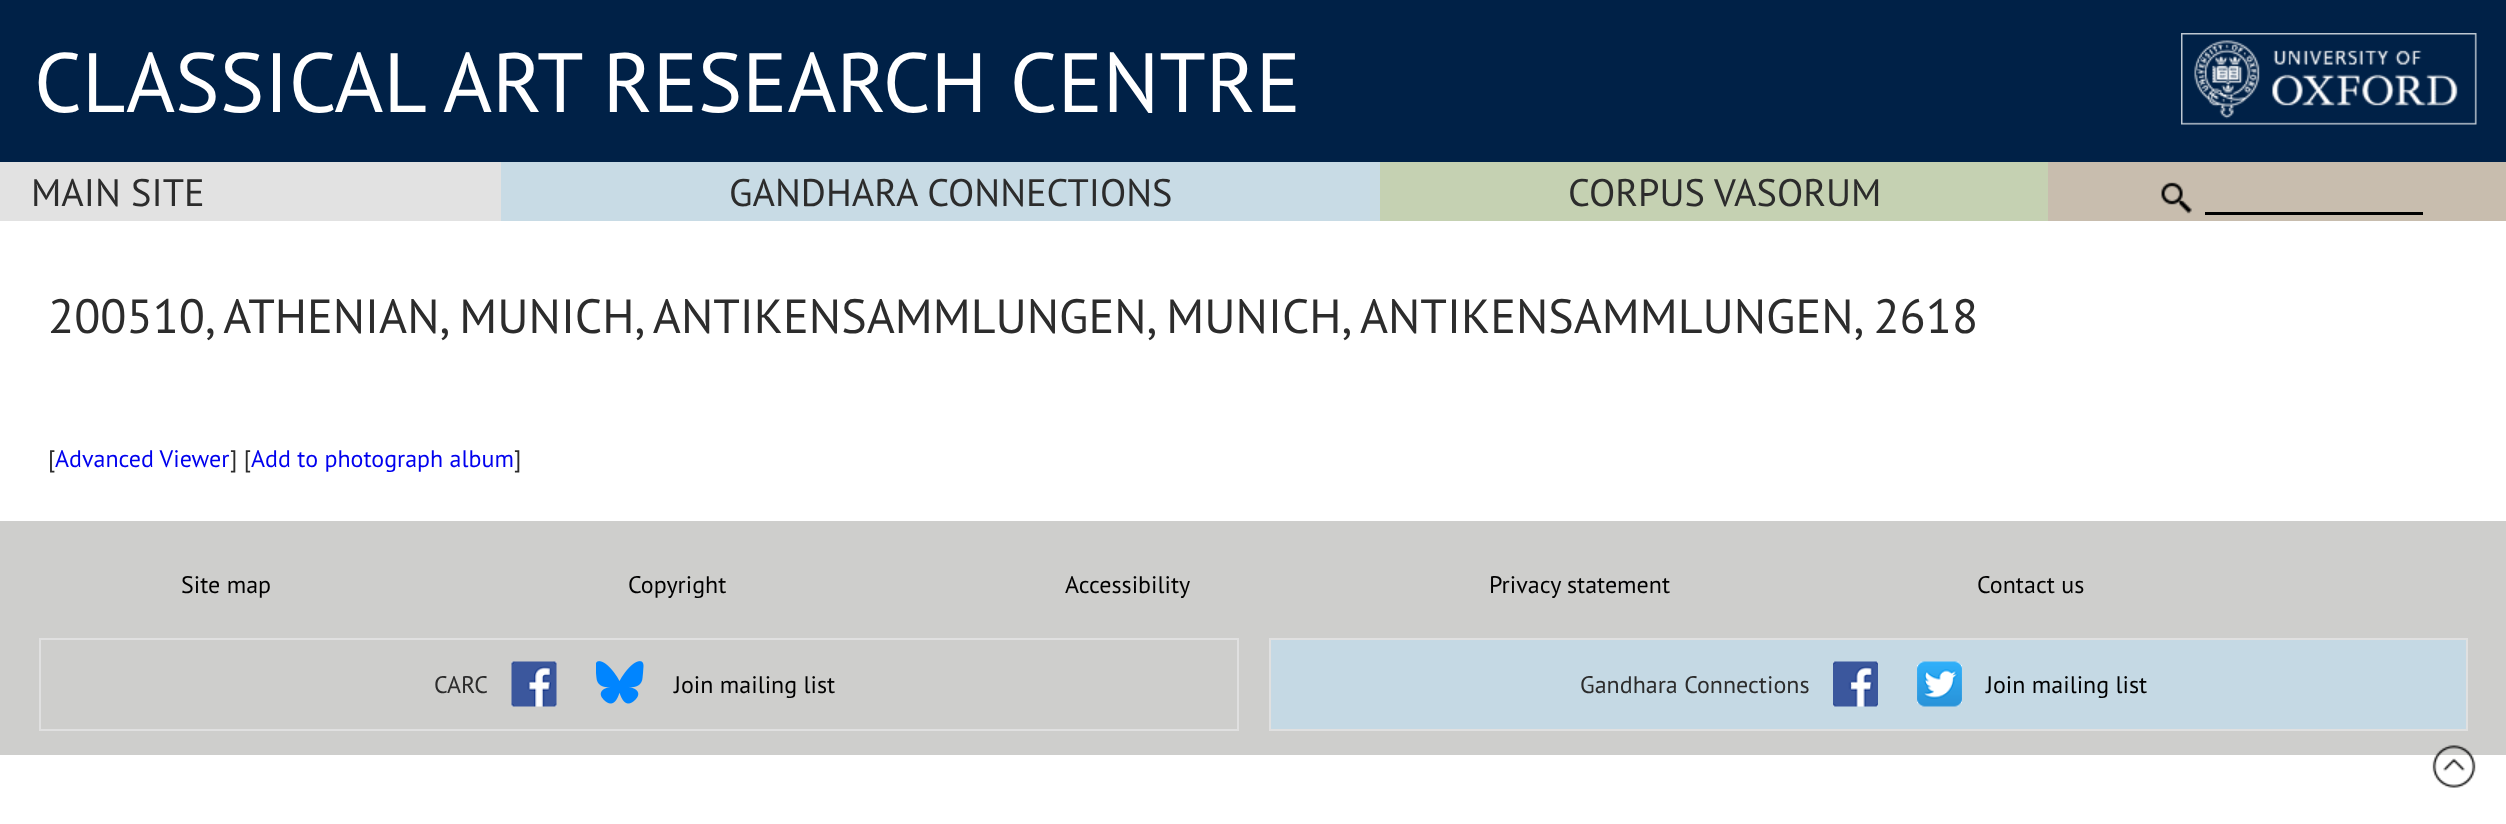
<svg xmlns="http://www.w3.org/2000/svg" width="2506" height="824">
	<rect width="100%" height="100%" fill="#FFFFFF" />
	<rect x="0" y="0" width="2506" height="162" fill="#002147" />
	<text x="34" y="112" font-family="PT Sans" font-size="84" fill="#FFFFFF">CLASSICAL ART RESEARCH CENTRE</text>
	<image x="2181" y="33" width="296" height="92" href="assets/img1.png" />
	<rect x="0" y="162" width="501" height="59" fill="#E2E2E2" />
	<text x="31" y="206" font-family="PT Sans" font-size="38.4" fill="#2C2C2C">MAIN SITE</text>
	<rect x="501" y="162" width="879" height="59" fill="#C8DBE5" />
	<text x="729" y="206" font-family="PT Sans" font-size="38.4" fill="#2C2C2C">GANDHARA CONNECTIONS</text>
	<rect x="1380" y="162" width="668" height="59" fill="#C5D1B2" />
	<text x="1568" y="206" font-family="PT Sans" font-size="38.4" fill="#2C2C2C">CORPUS VASORUM</text>
	<rect x="2048" y="162" width="458" height="59" fill="#C8BDAE" />
	<image x="2161" y="182" width="31" height="32" href="assets/img2.png" />
	<rect x="2205" y="212" width="218" height="3" fill="#000000" />
	<text x="48" y="333" font-family="PT Sans" font-size="48" fill="#2C2C2C">200510, ATHENIAN, MUNICH, ANTIKENSAMMLUNGEN, MUNICH, ANTIKENSAMMLUNGEN, 2618</text>
	<text x="48" y="467" font-family="PT Sans" font-size="24" fill="#2C2C2C">[</text>
	<text x="55" y="467" font-family="PT Sans" font-size="24" fill="#0000EE">Advanced Viewer</text>
	<text x="230" y="467" font-family="PT Sans" font-size="24" fill="#2C2C2C">] [</text>
	<text x="251" y="467" font-family="PT Sans" font-size="24" fill="#0000EE">Add to photograph album</text>
	<text x="514" y="467" font-family="PT Sans" font-size="24" fill="#2C2C2C">]</text>
	<rect x="0" y="521" width="2506" height="234" fill="#CECECC" />
	<g font-family="PT Sans" font-size="24" fill="#000000">
		<text x="181" y="593">Site map</text>
		<text x="628" y="593">Copyright</text>
		<text x="1065" y="593">Accessibility</text>
		<text x="1489" y="593">Privacy statement</text>
		<text x="1977" y="593">Contact us</text>
	</g>
	<rect x="40" y="639" width="1198" height="91" fill="none" stroke="#E0E0E0" stroke-width="2" />
	<text x="434" y="693" font-family="PT Sans" font-size="24" fill="#2C2C2C">CARC</text>
	<image x="511" y="661" width="46" height="46" href="assets/img3.png" />
	<image x="596" y="661" width="48" height="43" href="assets/img4.png" />
	<text x="674" y="693" font-family="PT Sans" font-size="24" fill="#000000">Join mailing list</text>
	<rect x="1270" y="639" width="1197" height="91" fill="#C5D9E4" stroke="#E0E0E0" stroke-width="2" />
	<text x="1580" y="693" font-family="PT Sans" font-size="24" fill="#2C2C2C">Gandhara Connections</text>
	<image x="1833" y="661" width="45" height="46" href="assets/img5.png" />
	<image x="1917" y="661" width="45" height="46" href="assets/img6.png" />
	<text x="1986" y="693" font-family="PT Sans" font-size="24" fill="#000000">Join mailing list</text>
	<image x="2432" y="745" width="44" height="43" href="assets/img7.png" />
</svg>
